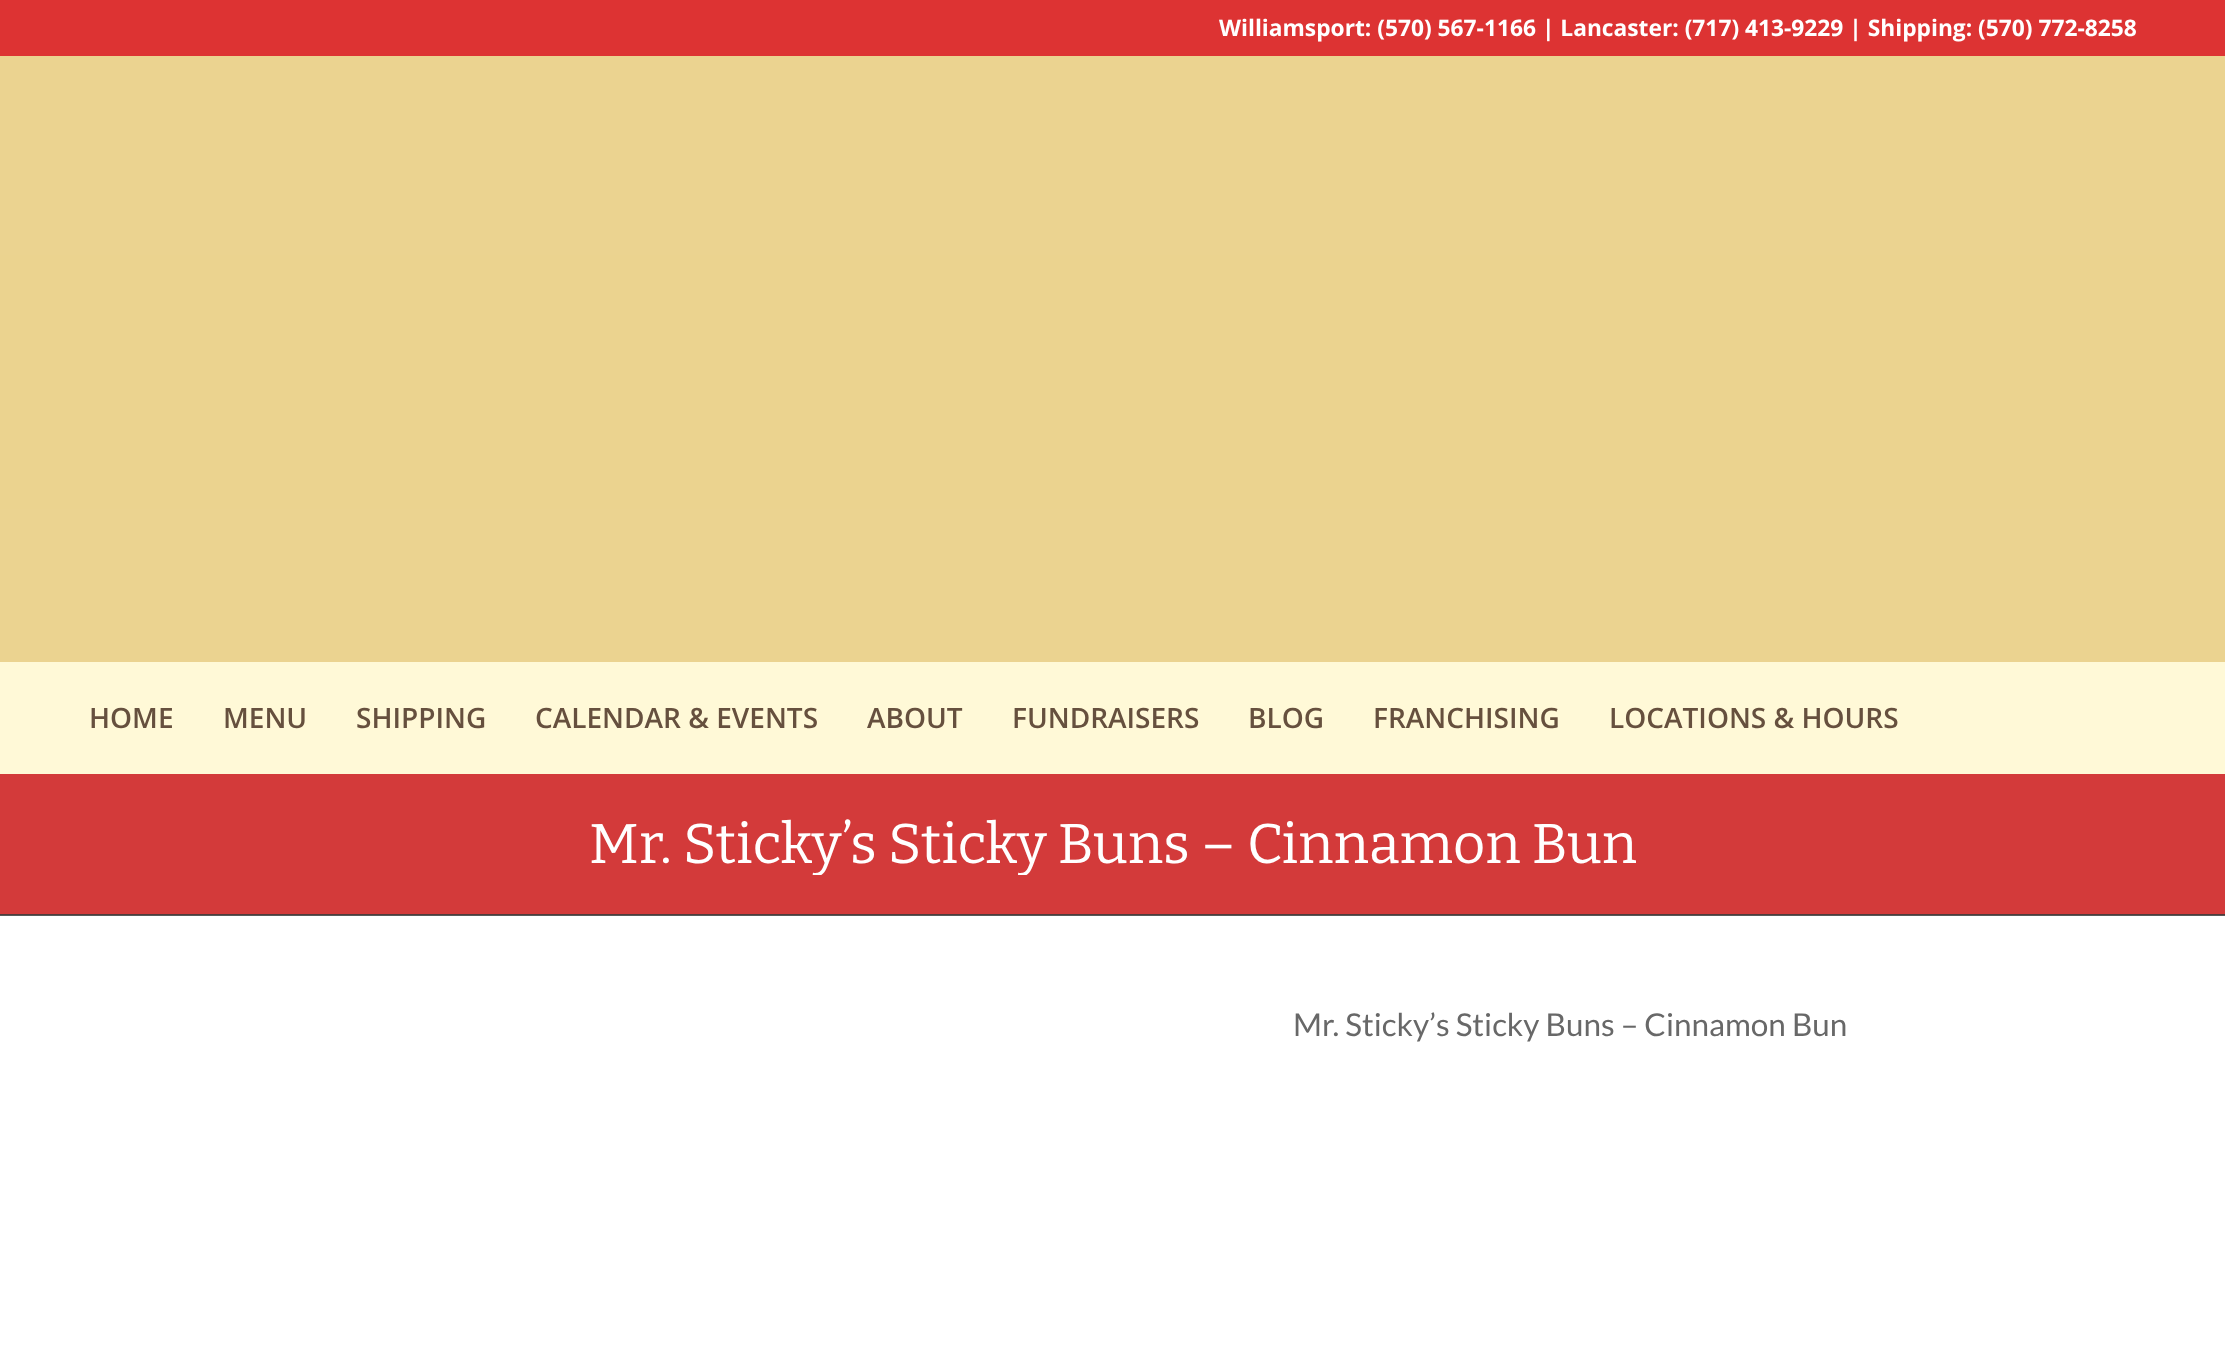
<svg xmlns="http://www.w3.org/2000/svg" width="2225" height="1355">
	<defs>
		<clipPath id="clip1"><rect x="590" y="812" width="1046" height="63" /></clipPath>
	</defs>
	<rect width="100%" height="100%" fill="#F4F4F4" />
	<rect x="0" y="56" width="2225" height="606" fill="#E8C971" fill-opacity="0.77" />
	<rect x="0" y="0" width="2225" height="56" fill="#DD3333" />
	<text x="1219" y="36" font-family="Open Sans" font-size="22.75" font-weight="700" fill="#FFFFFF">Williamsport: (570) 567-1166 | Lancaster: (717) 413-9229 | Shipping: (570) 772-8258</text>
	<rect x="0" y="662" width="2225" height="112" fill="#FFF9D7" />
	<g font-family="Open Sans" font-size="28" font-weight="600" fill="#66503E">
		<text x="89" y="728">HOME</text>
		<text x="223" y="728">MENU</text>
		<text x="356" y="728">SHIPPING</text>
		<text x="535" y="728">CALENDAR &amp; EVENTS</text>
		<text x="867" y="728">ABOUT</text>
		<text x="1012" y="728">FUNDRAISERS</text>
		<text x="1248" y="728">BLOG</text>
		<text x="1373" y="728">FRANCHISING</text>
		<text x="1609" y="728">LOCATIONS &amp; HOURS</text>
	</g>
	<rect x="0" y="916" width="2225" height="439" fill="#FFFFFF" />
	<rect x="0" y="915" width="2225" height="1" fill="#585858" />
	<rect x="0" y="774" width="2225" height="140" fill="#D33A3A" />
	<rect x="0" y="914" width="2225" height="1" fill="#513A3A" />
	<g clip-path="url(#clip1)">
		<text x="589" y="863" font-family="Bitter" font-size="56" fill="#FFFFFF">Mr. Sticky’s Sticky Buns – Cinnamon Bun</text>
	</g>
	<text x="1293" y="1036" font-family="Lato" font-size="31.5" fill="#686868">Mr. Sticky’s Sticky Buns – Cinnamon Bun</text>
</svg>
